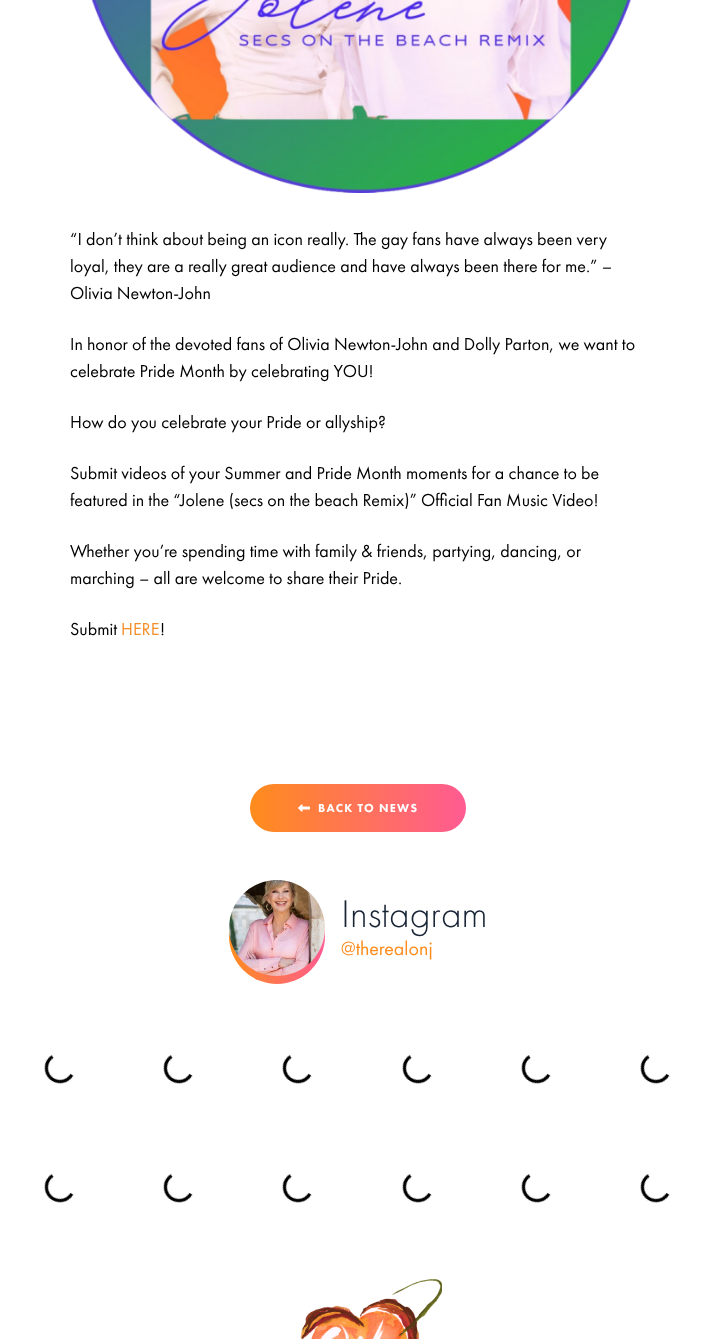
<svg xmlns="http://www.w3.org/2000/svg" width="716" height="1339">
	<defs>
		<linearGradient id="g1" gradientUnits="userSpaceOnUse" x1="250" y1="808" x2="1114" y2="808"><stop offset="0" stop-color="#FF8C1C" /><stop offset="0.25" stop-color="#FF5B92" /><stop offset="0.75" stop-color="#FF5B92" /><stop offset="1" stop-color="#FF8C1C" /></linearGradient>
		<linearGradient id="g2" gradientUnits="userSpaceOnUse" x1="229" y1="936" x2="325" y2="936"><stop offset="0" stop-color="#FF8C1C" /><stop offset="1" stop-color="#FF5B92" /></linearGradient>
	</defs>
	<rect width="100%" height="100%" fill="#FFFFFF" />
	<image x="91" y="0" width="541" height="193" href="assets/img1.png" />
	<g font-family="Futura PT" font-size="18" fill="#000000">
		<text x="70" y="245">“I don’t think about being an icon really. The gay fans have always been very</text>
		<text x="70" y="272">loyal, they are a really great audience and have always been there for me.” –</text>
		<text x="70" y="299">Olivia Newton-John</text>
		<text x="70" y="350">In honor of the devoted fans of Olivia Newton-John and Dolly Parton, we want to</text>
		<text x="70" y="377">celebrate Pride Month by celebrating YOU!</text>
		<text x="70" y="428">How do you celebrate your Pride or allyship?</text>
		<text x="70" y="479">Submit videos of your Summer and Pride Month moments for a chance to be</text>
		<text x="70" y="506">featured in the “Jolene (secs on the beach Remix)” Official Fan Music Video!</text>
		<text x="70" y="557">Whether you’re spending time with family &amp; friends, partying, dancing, or</text>
		<text x="70" y="584">marching – all are welcome to share their Pride.</text>
		<text x="70" y="635">Submit</text>
	</g>
	<text x="121" y="635" font-family="Futura PT" font-size="18" fill="#F48E2A">HERE</text>
	<text x="160" y="635" font-family="Futura PT" font-size="18" fill="#000000">!</text>
	<rect x="250" y="784" width="216" height="48" rx="24" fill="url(#g1)" />
	<image x="298" y="804" width="12" height="8" href="assets/img2.png" />
	<text x="318" y="812" font-family="Futura PT" font-size="12" font-weight="900" letter-spacing="1.25" fill="#FFFFFF">BACK TO NEWS</text>
	<circle cx="277" cy="936" r="48" fill="url(#g2)" />
	<image x="229" y="880" width="96" height="96" href="assets/img3.png" />
	<text x="341" y="927" font-family="Futura PT" font-size="40" font-weight="300" fill="#182436">Instagram</text>
	<text x="341" y="955" font-family="Futura PT" font-size="20" fill="#FF8C1C">@therealonj</text>
	<image x="44" y="1055" width="626" height="148" href="assets/img4.png" />
	<image x="300" y="1279" width="142" height="60" href="assets/img5.png" />
</svg>
